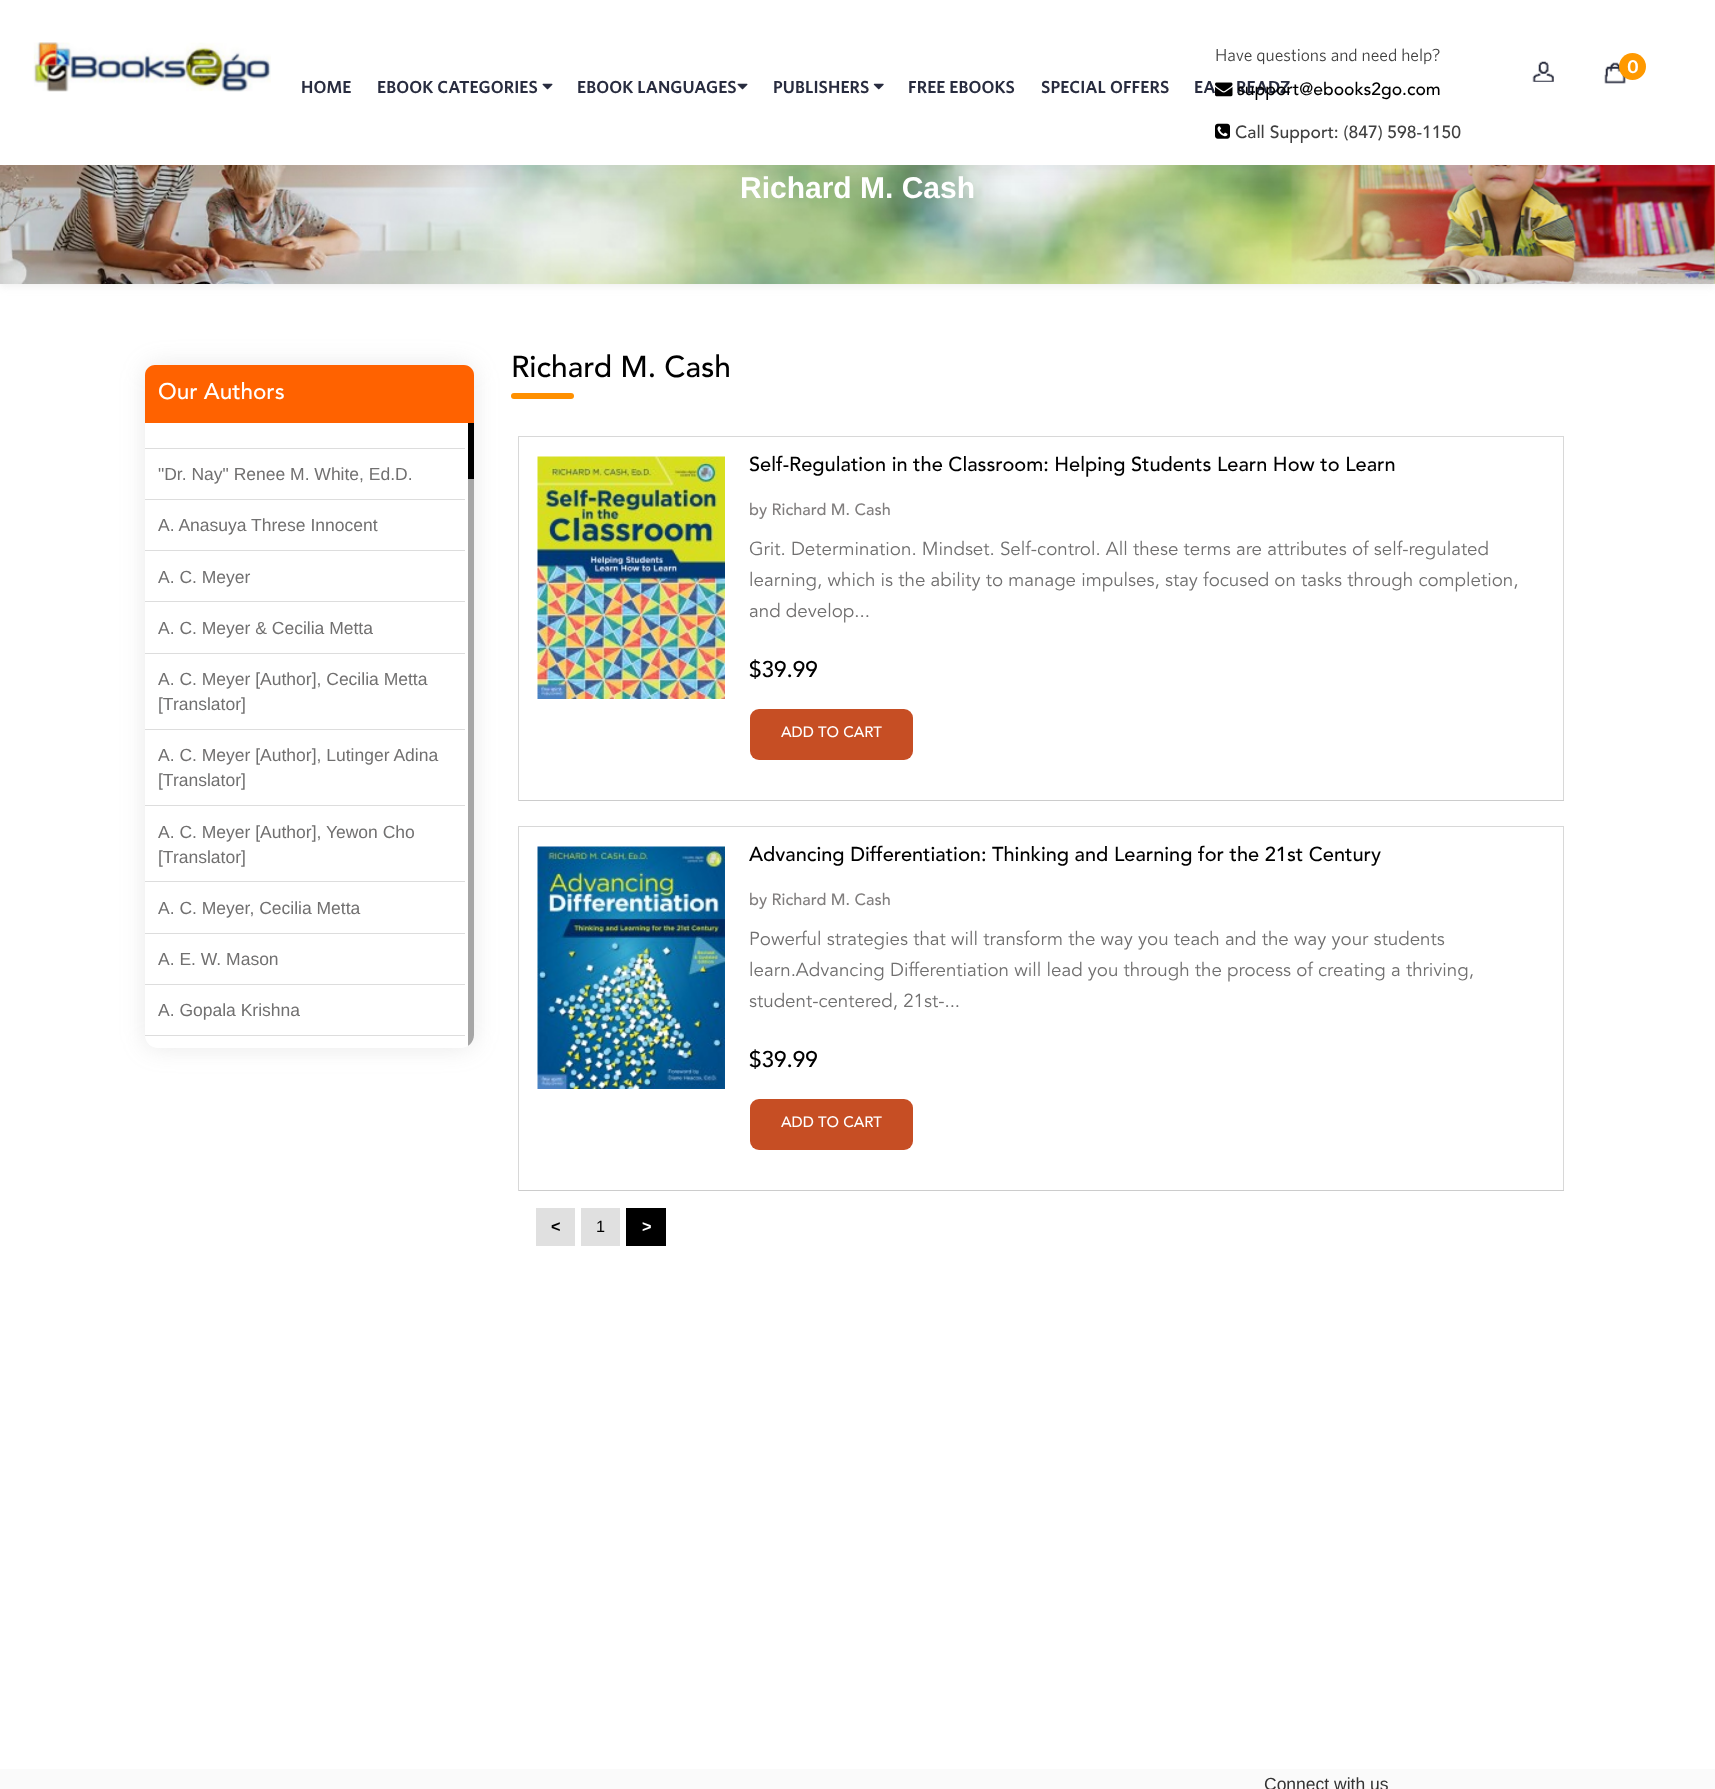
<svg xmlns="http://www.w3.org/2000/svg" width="1715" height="1789">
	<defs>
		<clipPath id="clip1"><path d="M145 423H474V1035C474 1042 468 1048 461 1048H158C151 1048 145 1042 145 1035Z" /></clipPath>
	</defs>
	<rect width="100%" height="100%" fill="#FFFFFF" />
	<rect x="0" y="70" width="1715" height="216" fill="#C8C8C8" fill-opacity="0.3" filter="blur(4.5px)" />
	<image x="0" y="165" width="1715" height="119" href="assets/img8.png" />
	<rect x="0" y="5" width="1715" height="165" fill="#000000" fill-opacity="0.05" filter="blur(7.5px)" />
	<rect x="0" y="0" width="1715" height="165" fill="#FFFFFF" />
	<image x="33" y="42" width="238" height="50" href="assets/img1.png" />
	<text x="1215" y="61" font-family="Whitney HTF" font-size="17.5" fill="#404040">Have questions and need help?</text>
	<text x="1194" y="93" font-family="Whitney HTF" font-size="17.5" font-weight="600" letter-spacing="0.1" fill="#282C3F">EA</text>
	<image x="1215" y="82" width="18" height="15" href="assets/img2.png" />
	<text x="1236" y="93" font-family="Whitney HTF" font-size="17.5" font-weight="600" letter-spacing="0.1" fill="#282C3F">READZ</text>
	<text x="1237" y="95" font-family="Avenir" font-size="17.5" font-weight="500" fill="#000000">support@ebooks2go.com</text>
	<image x="1215" y="123" width="15" height="16" href="assets/img3.png" />
	<text x="1235" y="138" font-family="Avenir" font-size="17.5" font-weight="500" fill="#404040">Call Support: (847) 598-1150</text>
	<image x="1532" y="61" width="22" height="21" href="assets/img4.png" />
	<image x="1604" y="62" width="22" height="22" href="assets/img5.png" />
	<circle cx="1632.5" cy="66.5" r="13.5" fill="#FF9900" />
	<text x="1627" y="73" font-family="Whitney HTF" font-size="18.75" font-weight="600" fill="#FFFFFF">0</text>
	<g font-family="Whitney HTF" font-size="17.5" font-weight="600" letter-spacing="0.1" fill="#282C3F">
		<text x="301" y="93">HOME</text>
		<text x="377" y="93">EBOOK CATEGORIES</text>
	</g>
	<image x="542" y="83" width="11" height="7" href="assets/img6.png" />
	<text x="577" y="93" font-family="Whitney HTF" font-size="17.5" font-weight="600" letter-spacing="0.1" fill="#282C3F">EBOOK LANGUAGES</text>
	<image x="737" y="83" width="11" height="7" href="assets/img6.png" />
	<text x="773" y="93" font-family="Whitney HTF" font-size="17.5" font-weight="600" letter-spacing="0.1" fill="#282C3F">PUBLISHERS</text>
	<image x="873" y="83" width="11" height="7" href="assets/img7.png" />
	<g font-family="Whitney HTF" font-size="17.5" font-weight="600" letter-spacing="0.1" fill="#282C3F">
		<text x="908" y="93">FREE EBOOKS</text>
		<text x="1041" y="93">SPECIAL OFFERS</text>
	</g>
	<text x="740" y="198" font-family="Liberation Sans" font-size="30" font-weight="700" fill="#FFFFFF">Richard M. Cash</text>
	<rect x="145" y="365" width="329" height="683" rx="13" fill="#8B8B8B" fill-opacity="0.2" filter="blur(12.5px)" />
	<rect x="145" y="365" width="329" height="683" rx="13" fill="#FFFFFF" />
	<path d="M155 365H464C469.5 365 474 369.5 474 375V423H145V375C145 369.5 149.5 365 155 365Z" fill="#FF6200" />
	<text x="158" y="399" font-family="Avenir" font-size="22.5" font-weight="500" fill="#FFFFFF">Our Authors</text>
	<rect x="145" y="448" width="320" height="1" fill="#DDDDDD" />
	<rect x="145" y="499" width="320" height="1" fill="#DDDDDD" />
	<text x="158" y="480" font-family="Liberation Sans" font-size="17.5" fill="#717070">"Dr. Nay" Renee M. White, Ed.D.</text>
	<rect x="145" y="550" width="320" height="1" fill="#DDDDDD" />
	<text x="158" y="531" font-family="Liberation Sans" font-size="17.5" fill="#717070">A. Anasuya Threse Innocent</text>
	<rect x="145" y="601" width="320" height="1" fill="#DDDDDD" />
	<text x="158" y="583" font-family="Liberation Sans" font-size="17.5" fill="#717070">A. C. Meyer</text>
	<rect x="145" y="653" width="320" height="1" fill="#DDDDDD" />
	<text x="158" y="634" font-family="Liberation Sans" font-size="17.5" fill="#717070">A. C. Meyer &amp; Cecilia Metta</text>
	<rect x="145" y="729" width="320" height="1" fill="#DDDDDD" />
	<g font-family="Liberation Sans" font-size="17.5" fill="#717070">
		<text x="158" y="685">A. C. Meyer [Author], Cecilia Metta</text>
		<text x="158" y="710">[Translator]</text>
	</g>
	<rect x="145" y="805" width="320" height="1" fill="#DDDDDD" />
	<g font-family="Liberation Sans" font-size="17.5" fill="#717070">
		<text x="158" y="761">A. C. Meyer [Author], Lutinger Adina</text>
		<text x="158" y="786">[Translator]</text>
	</g>
	<rect x="145" y="881" width="320" height="1" fill="#DDDDDD" />
	<g font-family="Liberation Sans" font-size="17.5" fill="#717070">
		<text x="158" y="838">A. C. Meyer [Author], Yewon Cho</text>
		<text x="158" y="863">[Translator]</text>
	</g>
	<rect x="145" y="933" width="320" height="1" fill="#DDDDDD" />
	<text x="158" y="914" font-family="Liberation Sans" font-size="17.5" fill="#717070">A. C. Meyer, Cecilia Metta</text>
	<rect x="145" y="984" width="320" height="1" fill="#DDDDDD" />
	<text x="158" y="965" font-family="Liberation Sans" font-size="17.5" fill="#717070">A. E. W. Mason</text>
	<rect x="145" y="1035" width="320" height="1" fill="#DDDDDD" />
	<text x="158" y="1016" font-family="Liberation Sans" font-size="17.5" fill="#717070">A. Gopala Krishna</text>
	<g clip-path="url(#clip1)">
		<rect x="468" y="479" width="6" height="569" fill="#A6A6A6" />
	</g>
	<rect x="468" y="423" width="6" height="56" fill="#000000" />
	<text x="511" y="377" font-family="Avenir" font-size="30" font-weight="500" fill="#000000">Richard M. Cash</text>
	<rect x="511" y="393" width="63" height="6" rx="3" fill="#FF9000" />
	<rect x="518" y="436" width="1046" height="1" fill="#D8D8D8" />
	<rect x="1563" y="436" width="1" height="365" fill="#D8D8D8" />
	<rect x="518" y="800" width="1046" height="1" fill="#CCCCCC" />
	<rect x="518" y="436" width="1" height="365" fill="#D8D8D8" />
	<image x="537" y="456" width="188" height="243" href="assets/img9.png" />
	<text x="749" y="471" font-family="Avenir" font-size="20" font-weight="500" fill="#000000">Self-Regulation in the Classroom: Helping Students Learn How to Learn</text>
	<text x="749" y="515" font-family="Avenir" font-size="16.25" font-weight="500" fill="#817E7E">by Richard M. Cash</text>
	<g font-family="Avenir" font-size="18.75" fill="#717070">
		<text x="749" y="555">Grit. Determination. Mindset. Self-control. All these terms are attributes of self-regulated</text>
		<text x="749" y="586">learning, which is the ability to manage impulses, stay focused on tasks through completion,</text>
		<text x="749" y="617">and develop...</text>
	</g>
	<text x="749" y="677" font-family="Avenir" font-size="22.5" font-weight="500" fill="#000000">$39.99</text>
	<rect x="750" y="709" width="163" height="51" rx="9" fill="#C64E24" />
	<text x="781" y="737" font-family="Avenir" font-size="15" font-weight="500" fill="#FFFFFF">ADD TO CART</text>
	<rect x="518" y="826" width="1046" height="1" fill="#D8D8D8" />
	<rect x="1563" y="826" width="1" height="365" fill="#D8D8D8" />
	<rect x="518" y="1190" width="1046" height="1" fill="#CCCCCC" />
	<rect x="518" y="826" width="1" height="365" fill="#D8D8D8" />
	<image x="537" y="846" width="188" height="243" href="assets/img10.png" />
	<text x="749" y="861" font-family="Avenir" font-size="20" font-weight="500" fill="#000000">Advancing Differentiation: Thinking and Learning for the 21st Century</text>
	<text x="749" y="905" font-family="Avenir" font-size="16.25" font-weight="500" fill="#817E7E">by Richard M. Cash</text>
	<g font-family="Avenir" font-size="18.75" fill="#717070">
		<text x="749" y="945">Powerful strategies that will transform the way you teach and the way your students</text>
		<text x="749" y="976">learn.Advancing Differentiation will lead you through the process of creating a thriving,</text>
		<text x="749" y="1007">student-centered, 21st-...</text>
	</g>
	<text x="749" y="1067" font-family="Avenir" font-size="22.5" font-weight="500" fill="#000000">$39.99</text>
	<rect x="750" y="1099" width="163" height="51" rx="9" fill="#C64E24" />
	<text x="781" y="1127" font-family="Avenir" font-size="15" font-weight="500" fill="#FFFFFF">ADD TO CART</text>
	<rect x="536" y="1208" width="39" height="38" fill="#E0E0E0" />
	<text x="551" y="1232" font-family="Liberation Sans" font-size="16.25" font-weight="700" fill="#000000">&lt;</text>
	<rect x="581" y="1208" width="39" height="38" fill="#E0E0E0" />
	<text x="596" y="1232" font-family="Liberation Sans" font-size="16.25" fill="#000000">1</text>
	<rect x="626" y="1208" width="40" height="38" fill="#000000" />
	<text x="642" y="1232" font-family="Liberation Sans" font-size="16.25" font-weight="700" fill="#FFFFFF">&gt;</text>
	<rect x="0" y="1769" width="1715" height="20" fill="#FAFAFA" />
	<text x="1264" y="1790" font-family="Liberation Sans" font-size="17.5" fill="#333333">Connect with us</text>
</svg>
